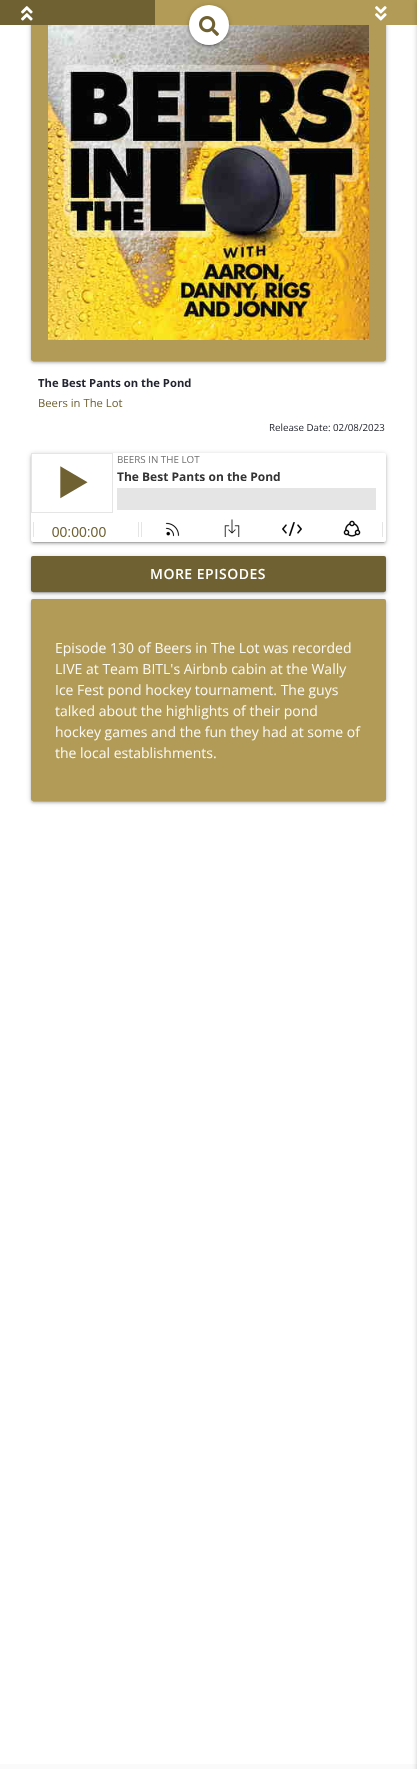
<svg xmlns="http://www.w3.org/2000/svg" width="417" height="1769">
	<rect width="100%" height="100%" fill="#FFFFFF" />
	<rect x="31" y="3" width="355" height="359" rx="2" fill="#000000" fill-opacity="0.2" filter="blur(2.5px)" />
	<rect x="33" y="7" width="351" height="355" fill="#000000" fill-opacity="0.12" filter="blur(0.5px)" />
	<rect x="31" y="4" width="355" height="359" rx="2" fill="#000000" fill-opacity="0.14" filter="blur(1px)" />
	<rect x="31" y="2" width="355" height="359" rx="2" fill="#B29B57" />
	<rect x="155" y="0" width="262" height="25" fill="#B29B57" />
	<rect x="0" y="0" width="155" height="25" fill="#706133" />
	<image x="48" y="25" width="321" height="315" href="assets/img4.png" />
	<rect x="189" y="6" width="40" height="40" rx="20" fill="#000000" fill-opacity="0.2" filter="blur(2.5px)" />
	<rect x="191" y="10" width="36" height="36" rx="18" fill="#000000" fill-opacity="0.12" filter="blur(0.5px)" />
	<rect x="189" y="7" width="40" height="40" rx="20" fill="#000000" fill-opacity="0.14" filter="blur(1px)" />
	<circle cx="209" cy="25" r="20" fill="#FFFFFF" />
	<image x="199" y="16" width="20" height="20" href="assets/img1.png" />
	<image x="21" y="6" width="12" height="15" href="assets/img2.png" />
	<image x="375" y="6" width="12" height="15" href="assets/img3.png" />
	<text x="38" y="387" font-family="Open Sans" font-size="11.25" font-weight="700" fill="#232530">The Best Pants on the Pond</text>
	<text x="38" y="407" font-family="Open Sans" font-size="11.25" fill="#706133">Beers in The Lot</text>
	<text x="269" y="431" font-family="Open Sans" font-size="9.75" fill="#232530">Release Date: 02/08/2023</text>
	<rect x="31" y="454" width="355" height="89" rx="2" fill="#000000" fill-opacity="0.2" filter="blur(2.5px)" />
	<rect x="33" y="458" width="351" height="85" fill="#000000" fill-opacity="0.12" filter="blur(0.5px)" />
	<rect x="31" y="455" width="355" height="89" rx="2" fill="#000000" fill-opacity="0.14" filter="blur(1px)" />
	<rect x="31" y="453" width="355" height="89" rx="2" fill="#FFFFFF" />
	<image x="31" y="453" width="352" height="84" href="assets/img5.png" />
	<rect x="31" y="557" width="355" height="36" rx="2" fill="#000000" fill-opacity="0.2" filter="blur(2.5px)" />
	<rect x="33" y="561" width="351" height="32" fill="#000000" fill-opacity="0.12" filter="blur(0.5px)" />
	<rect x="31" y="558" width="355" height="36" rx="2" fill="#000000" fill-opacity="0.14" filter="blur(1px)" />
	<rect x="31" y="556" width="355" height="36" rx="2" fill="#706133" />
	<text x="150" y="579" font-family="Open Sans" font-size="14" font-weight="600" letter-spacing="0.5" fill="#FFFFFF">MORE EPISODES</text>
	<rect x="31" y="600" width="355" height="202" rx="2" fill="#000000" fill-opacity="0.2" filter="blur(2.5px)" />
	<rect x="33" y="604" width="351" height="198" fill="#000000" fill-opacity="0.12" filter="blur(0.5px)" />
	<rect x="31" y="601" width="355" height="202" rx="2" fill="#000000" fill-opacity="0.14" filter="blur(1px)" />
	<rect x="31" y="599" width="355" height="202" rx="2" fill="#B29B57" />
	<g font-family="Open Sans" font-size="14" fill="#FAF9F4">
		<text x="55" y="653">Episode 130 of Beers in The Lot was recorded</text>
		<text x="55" y="674">LIVE at Team BITL's Airbnb cabin at the Wally</text>
		<text x="55" y="695">Ice Fest pond hockey tournament. The guys</text>
		<text x="55" y="716">talked about the highlights of their pond</text>
		<text x="55" y="737">hockey games and the fun they had at some of</text>
		<text x="55" y="758">the local establishments.</text>
	</g>
	<rect x="0" y="1764" width="417" height="5" fill="#FAFAFA" />
	<rect x="417" y="1" width="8" height="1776" fill="#000000" fill-opacity="0.2" filter="blur(2.5px)" />
</svg>
